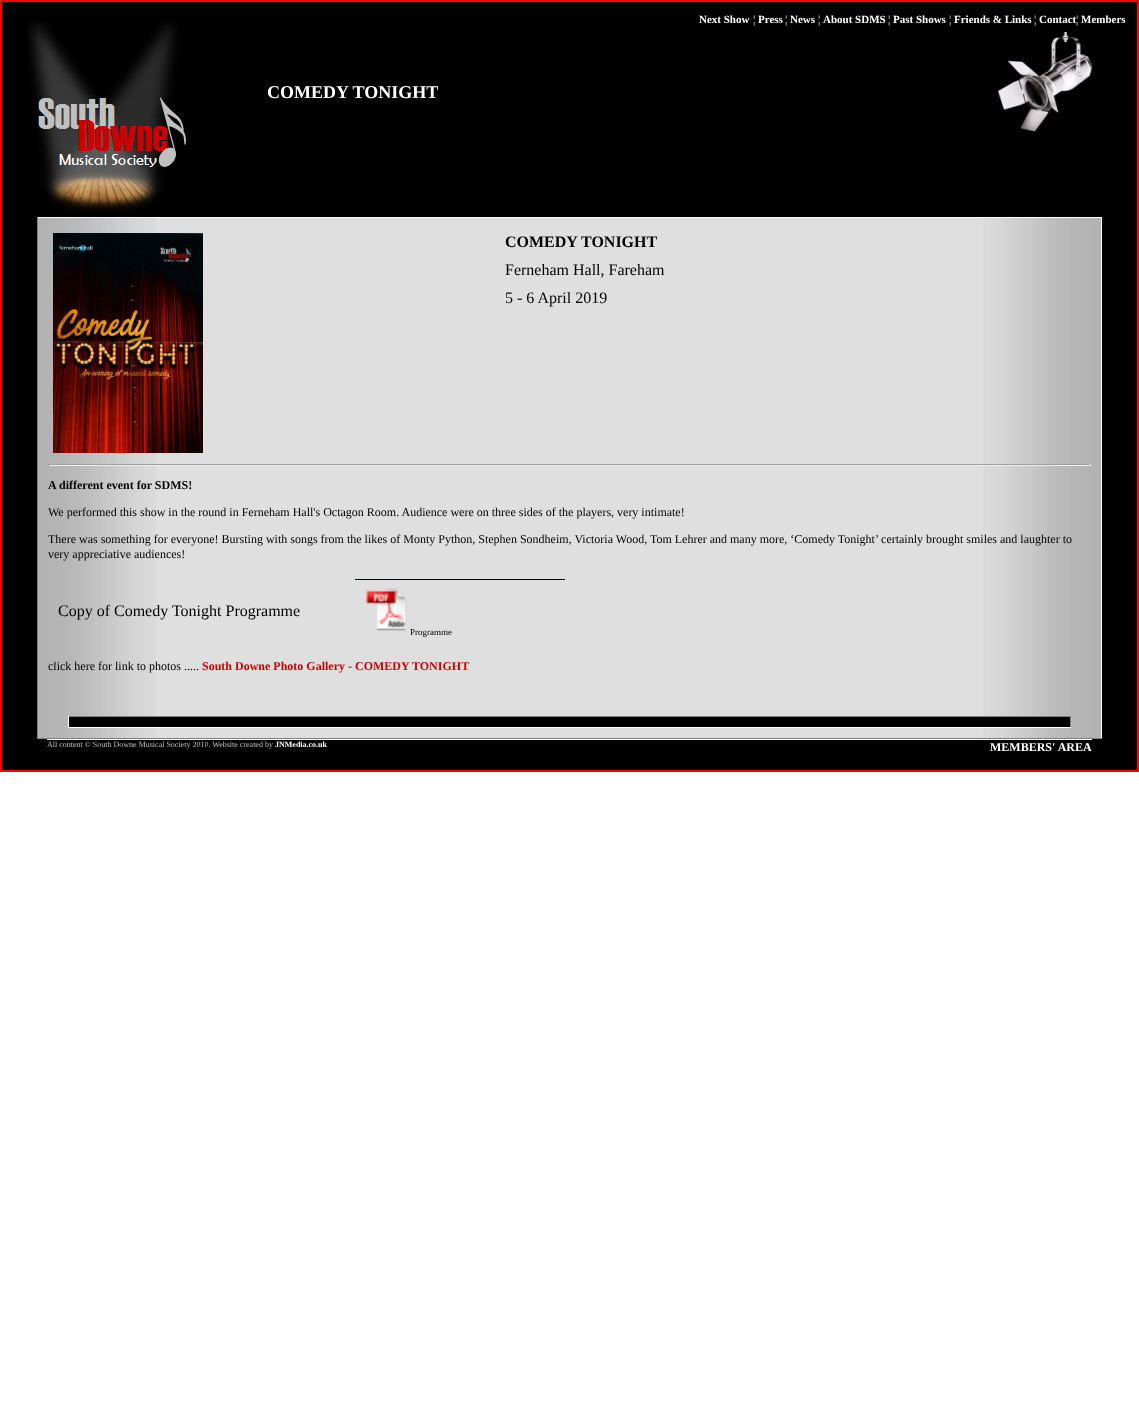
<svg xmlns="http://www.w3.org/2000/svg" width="1139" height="1415">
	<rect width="100%" height="100%" fill="#FFFFFF" />
	<rect x="1" y="1" width="1137" height="770" fill="#000000" stroke="#FF0000" stroke-width="2" />
	<image x="27" y="20" width="159" height="192" href="assets/img1.png" />
	<text x="699" y="23" font-family="Liberation Serif" font-size="11" font-weight="700" fill="#FFFFFF">Next Show</text>
	<text x="753" y="23" font-family="Liberation Serif" font-size="11" fill="#FFFFFF">¦</text>
	<text x="758" y="23" font-family="Liberation Serif" font-size="11" font-weight="700" fill="#FFFFFF">Press</text>
	<text x="785" y="23" font-family="Liberation Serif" font-size="11" fill="#FFFFFF">¦</text>
	<text x="790" y="23" font-family="Liberation Serif" font-size="11" font-weight="700" fill="#FFFFFF">News</text>
	<text x="818" y="23" font-family="Liberation Serif" font-size="11" fill="#FFFFFF">¦</text>
	<text x="823" y="23" font-family="Liberation Serif" font-size="11" font-weight="700" fill="#FFFFFF">About SDMS</text>
	<text x="888" y="23" font-family="Liberation Serif" font-size="11" fill="#FFFFFF">¦</text>
	<text x="893" y="23" font-family="Liberation Serif" font-size="11" font-weight="700" fill="#FFFFFF">Past Shows</text>
	<text x="949" y="23" font-family="Liberation Serif" font-size="11" fill="#FFFFFF">¦</text>
	<text x="954" y="23" font-family="Liberation Serif" font-size="11" font-weight="700" fill="#FFFFFF">Friends &amp; Links</text>
	<text x="1034" y="23" font-family="Liberation Serif" font-size="11" fill="#FFFFFF">¦</text>
	<text x="1039" y="23" font-family="Liberation Serif" font-size="11" font-weight="700" fill="#FFFFFF">Contact</text>
	<text x="1076" y="23" font-family="Liberation Serif" font-size="11" fill="#FFFFFF">¦</text>
	<text x="1081" y="23" font-family="Liberation Serif" font-size="11" font-weight="700" fill="#FFFFFF">Members</text>
	<text x="267" y="98" font-family="Liberation Serif" font-size="18" font-weight="700" fill="#FFFFFF">COMEDY TONIGHT</text>
	<image x="997" y="32" width="96" height="100" href="assets/img2.png" />
	<rect x="156" y="218" width="827" height="520" fill="#DEDFDE" />
	<image x="38" y="218" width="118" height="520" href="assets/img3.png" />
	<rect x="37" y="217" width="1065" height="1" fill="#FFFFFF" />
	<rect x="1101" y="217" width="1" height="522" fill="#FFFFFF" />
	<rect x="37" y="738" width="1065" height="1" fill="#808080" />
	<rect x="37" y="217" width="1" height="522" fill="#808080" />
	<image x="983" y="218" width="118" height="520" href="assets/img4.png" />
	<image x="53" y="233" width="150" height="220" href="assets/img5.png" />
	<text x="505" y="247" font-family="Liberation Serif" font-size="16" font-weight="700" fill="#000000">COMEDY TONIGHT</text>
	<g font-family="Liberation Serif" font-size="16" fill="#000000">
		<text x="505" y="275">Ferneham Hall, Fareham</text>
		<text x="505" y="303">5 - 6 April 2019</text>
	</g>
	<rect x="48" y="464" width="1043" height="1" fill="#9F9F9F" />
	<rect x="1090" y="464" width="1" height="2" fill="#EEEEEE" />
	<rect x="48" y="465" width="1043" height="1" fill="#EEEEEE" />
	<rect x="48" y="464" width="1" height="2" fill="#9F9F9F" />
	<text x="48" y="489" font-family="Liberation Serif" font-size="12" font-weight="700" fill="#000000">A different event for SDMS!</text>
	<g font-family="Liberation Serif" font-size="12" fill="#000000">
		<text x="48" y="516">We performed this show in the round in Ferneham Hall's Octagon Room. Audience were on three sides of the players, very intimate!</text>
		<text x="48" y="543">There was something for everyone! Bursting with songs from the likes of Monty Python, Stephen Sondheim, Victoria Wood, Tom Lehrer and many more, ‘Comedy Tonight’ certainly brought smiles and laughter to</text>
		<text x="48" y="558">very appreciative audiences!</text>
	</g>
	<text x="58" y="616" font-family="Liberation Serif" font-size="16" fill="#000000">Copy of Comedy Tonight Programme</text>
	<rect x="355" y="579" width="210" height="1" fill="#000000" />
	<image x="366" y="588" width="41" height="43" href="assets/img6.png" />
	<text x="410" y="635" font-family="Liberation Serif" font-size="9" fill="#000000">Programme</text>
	<text x="48" y="670" font-family="Liberation Serif" font-size="12" fill="#000000">click here for link to photos .....</text>
	<text x="202" y="670" font-family="Liberation Serif" font-size="12" font-weight="700" fill="#CE0000">South Downe Photo Gallery - COMEDY TONIGHT</text>
	<rect x="69" y="717" width="1001" height="10" fill="#000000" />
	<rect x="68" y="716" width="1003" height="1" fill="#808080" />
	<rect x="1070" y="716" width="1" height="12" fill="#808080" />
	<rect x="68" y="727" width="1003" height="1" fill="#FFFFFF" />
	<rect x="68" y="716" width="1" height="12" fill="#FFFFFF" />
	<rect x="47" y="739" width="1045" height="1" fill="#FFFFFF" />
	<text x="47" y="747" font-family="Liberation Serif" font-size="8" fill="#BDBFBE">All content © South Downe Musical Society 2010. Website created by</text>
	<text x="275" y="747" font-family="Liberation Serif" font-size="8" font-weight="700" fill="#FFFFFF">JNMedia.co.uk</text>
	<text x="990" y="751" font-family="Liberation Serif" font-size="12" font-weight="700" fill="#FFFFFF">MEMBERS' AREA</text>
</svg>
